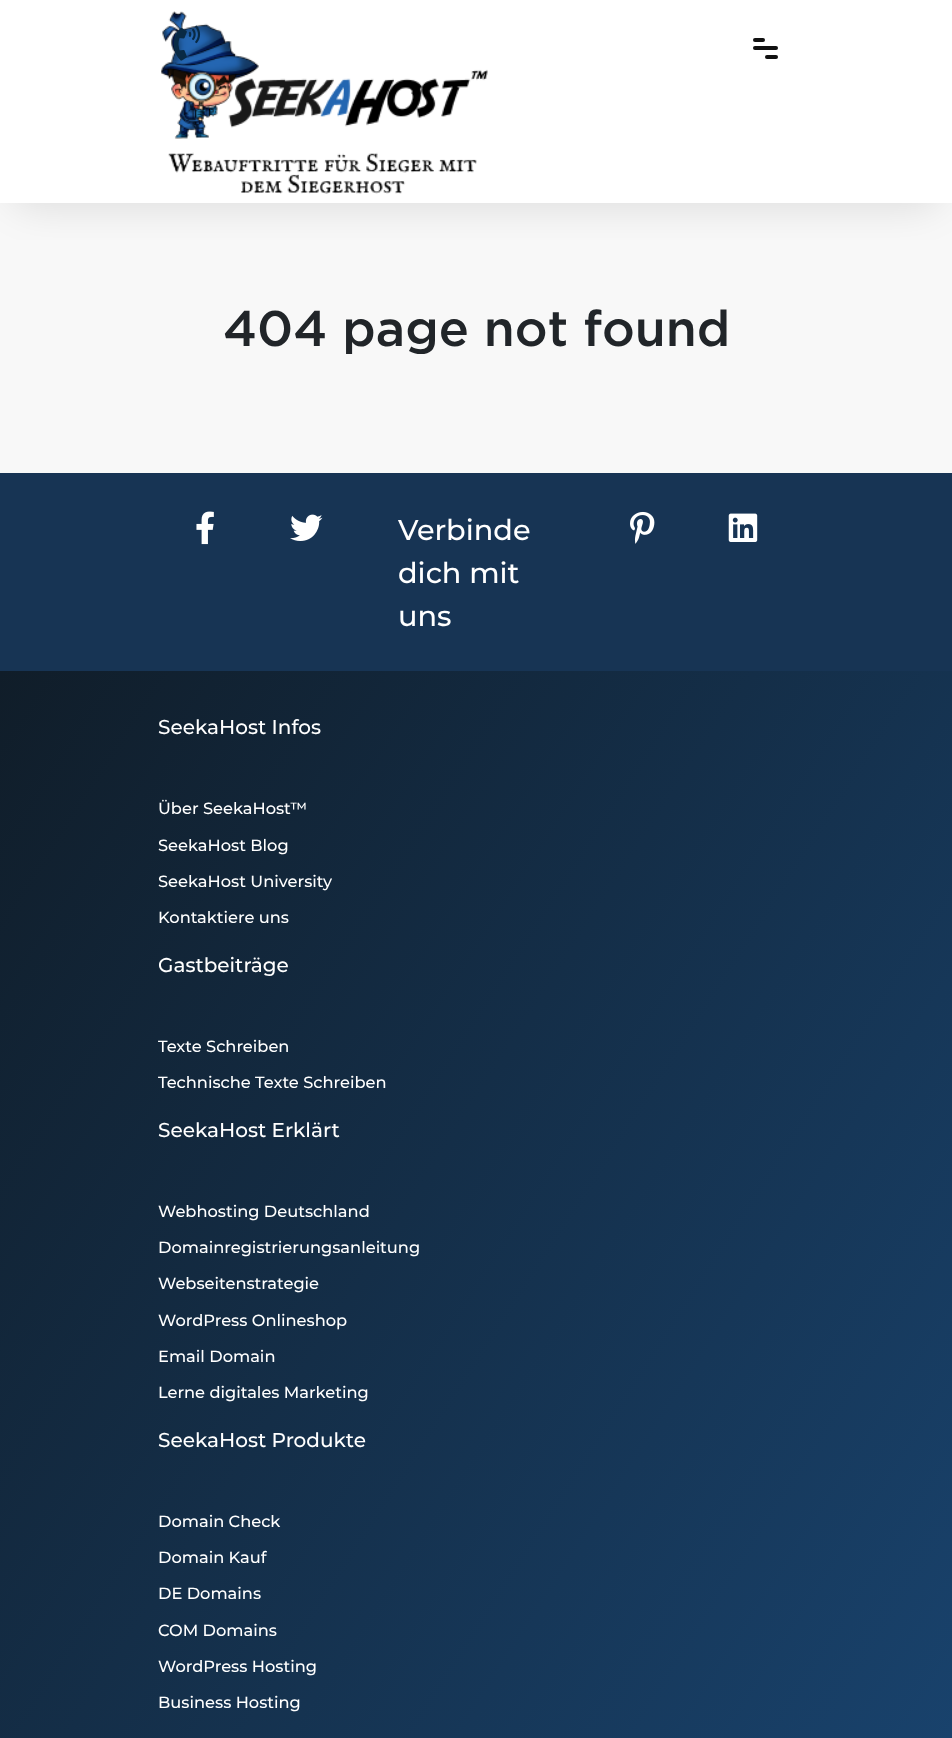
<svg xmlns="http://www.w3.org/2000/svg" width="952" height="1738">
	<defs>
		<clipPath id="clip1"><rect x="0" y="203" width="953" height="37" /></clipPath>
		<linearGradient id="g1" gradientUnits="userSpaceOnUse" x1="-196" y1="975" x2="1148" y2="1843"><stop offset="0" stop-color="#101D29" /><stop offset="1" stop-color="#1A4877" /></linearGradient>
	</defs>
	<rect width="100%" height="100%" fill="#FFFFFF" />
	<rect x="0" y="203" width="952" height="270" fill="#F8F8F8" />
	<g clip-path="url(#clip1)">
		<rect x="6" y="146" width="940" height="63" rx="31.5" fill="#000000" fill-opacity="0.1" filter="blur(19px)" />
	</g>
	<image x="161" y="11" width="327" height="183" href="assets/img1.png" />
	<image x="174" y="25" width="27" height="36" href="assets/img2.png" />
	<rect x="753" y="38" width="12" height="4" rx="2" fill="#111111" />
	<rect x="753" y="46" width="25" height="4" rx="2" fill="#111111" />
	<rect x="765" y="55" width="13" height="4" rx="2" fill="#111111" />
	<text x="223" y="346" font-family="Gotham" font-size="50" font-weight="500" fill="#212529">404 page not found</text>
	<rect x="0" y="473" width="952" height="198" fill="#173454" />
	<image x="196" y="511" width="18" height="34" href="assets/img3.png" />
	<image x="290" y="514" width="33" height="27" href="assets/img4.png" />
	<g font-family="Montserrat" font-size="28.75" font-weight="500" fill="#FFFFFF">
		<text x="398" y="540">Verbinde</text>
		<text x="398" y="583">dich mit</text>
		<text x="398" y="626">uns</text>
	</g>
	<image x="630" y="511" width="25" height="33" href="assets/img5.png" />
	<image x="728" y="513" width="30" height="29" href="assets/img6.png" />
	<rect x="0" y="671" width="952" height="1067" fill="url(#g1)" />
	<text x="158" y="734" font-family="Montserrat" font-size="20" font-weight="500" fill="#FFFFFF">SeekaHost Infos</text>
	<g font-family="Montserrat" font-size="16.25" font-weight="500" fill="#FFFFFF">
		<text x="158" y="814">Über SeekaHost™</text>
		<text x="158" y="851">SeekaHost Blog</text>
		<text x="158" y="887">SeekaHost University</text>
		<text x="158" y="923">Kontaktiere uns</text>
	</g>
	<text x="158" y="972" font-family="Montserrat" font-size="20" font-weight="500" fill="#FFFFFF">Gastbeiträge</text>
	<g font-family="Montserrat" font-size="16.25" font-weight="500" fill="#FFFFFF">
		<text x="158" y="1052">Texte Schreiben</text>
		<text x="158" y="1088">Technische Texte Schreiben</text>
	</g>
	<text x="158" y="1137" font-family="Montserrat" font-size="20" font-weight="500" fill="#FFFFFF">SeekaHost Erklärt</text>
	<g font-family="Montserrat" font-size="16.25" font-weight="500" fill="#FFFFFF">
		<text x="158" y="1217">Webhosting Deutschland</text>
		<text x="158" y="1253">Domainregistrierungsanleitung</text>
		<text x="158" y="1289">Webseitenstrategie</text>
		<text x="158" y="1326">WordPress Onlineshop</text>
		<text x="158" y="1362">Email Domain</text>
		<text x="158" y="1398">Lerne digitales Marketing</text>
	</g>
	<text x="158" y="1447" font-family="Montserrat" font-size="20" font-weight="500" fill="#FFFFFF">SeekaHost Produkte</text>
	<g font-family="Montserrat" font-size="16.25" font-weight="500" fill="#FFFFFF">
		<text x="158" y="1527">Domain Check</text>
		<text x="158" y="1563">Domain Kauf</text>
		<text x="158" y="1599">DE Domains</text>
		<text x="158" y="1636">COM Domains</text>
		<text x="158" y="1672">WordPress Hosting</text>
		<text x="158" y="1708">Business Hosting</text>
	</g>
</svg>
